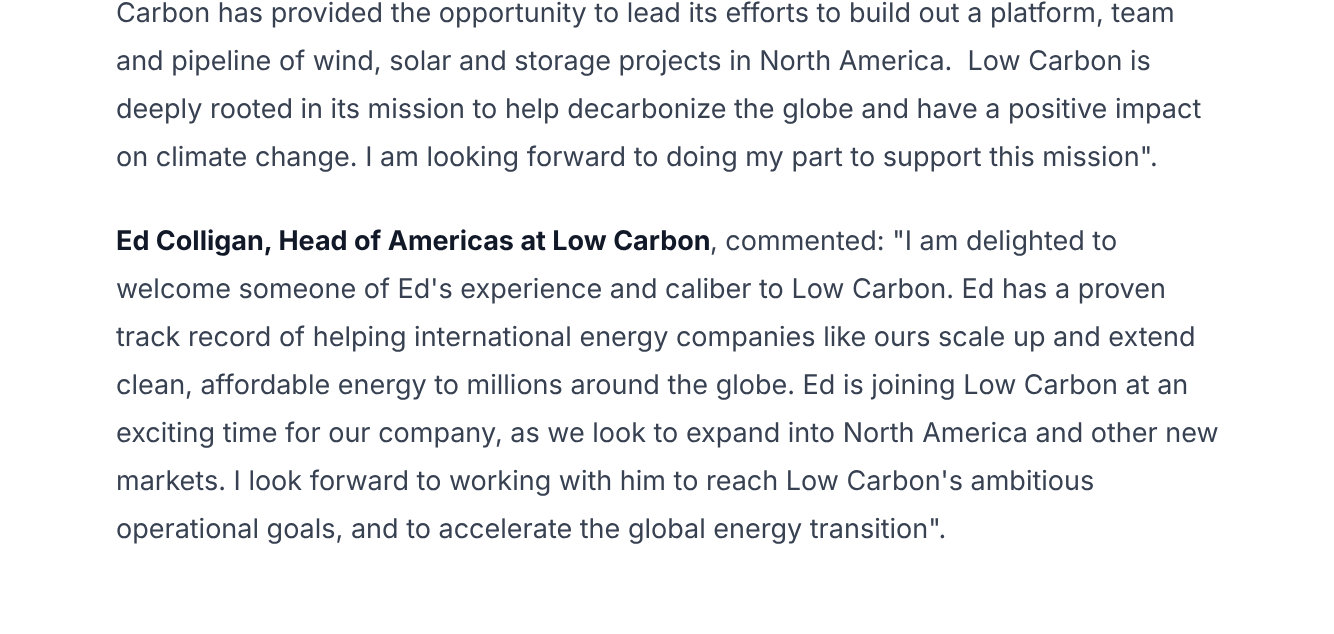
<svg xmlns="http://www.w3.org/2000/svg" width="1334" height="634">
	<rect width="100%" height="100%" fill="#FFFFFF" />
	<g font-family="Inter" font-size="27" fill="#374151">
		<text x="116" y="22">Carbon has provided the opportunity to lead its efforts to build out a platform, team</text>
		<text x="116" y="70" xml:space="preserve">and pipeline of wind, solar and storage projects in North America.  Low Carbon is</text>
		<text x="116" y="118">deeply rooted in its mission to help decarbonize the globe and have a positive impact</text>
		<text x="116" y="166">on climate change. I am looking forward to doing my part to support this mission".</text>
	</g>
	<text x="116" y="250" font-family="Inter" font-size="27" font-weight="700" fill="#111827">Ed Colligan, Head of Americas at Low Carbon</text>
	<g font-family="Inter" font-size="27" fill="#374151">
		<text x="710" y="250">, commented: "I am delighted to</text>
		<text x="116" y="298">welcome someone of Ed's experience and caliber to Low Carbon. Ed has a proven</text>
		<text x="116" y="346">track record of helping international energy companies like ours scale up and extend</text>
		<text x="116" y="394">clean, affordable energy to millions around the globe. Ed is joining Low Carbon at an</text>
		<text x="116" y="442">exciting time for our company, as we look to expand into North America and other new</text>
		<text x="116" y="490">markets. I look forward to working with him to reach Low Carbon's ambitious</text>
		<text x="116" y="538">operational goals, and to accelerate the global energy transition".</text>
	</g>
</svg>
